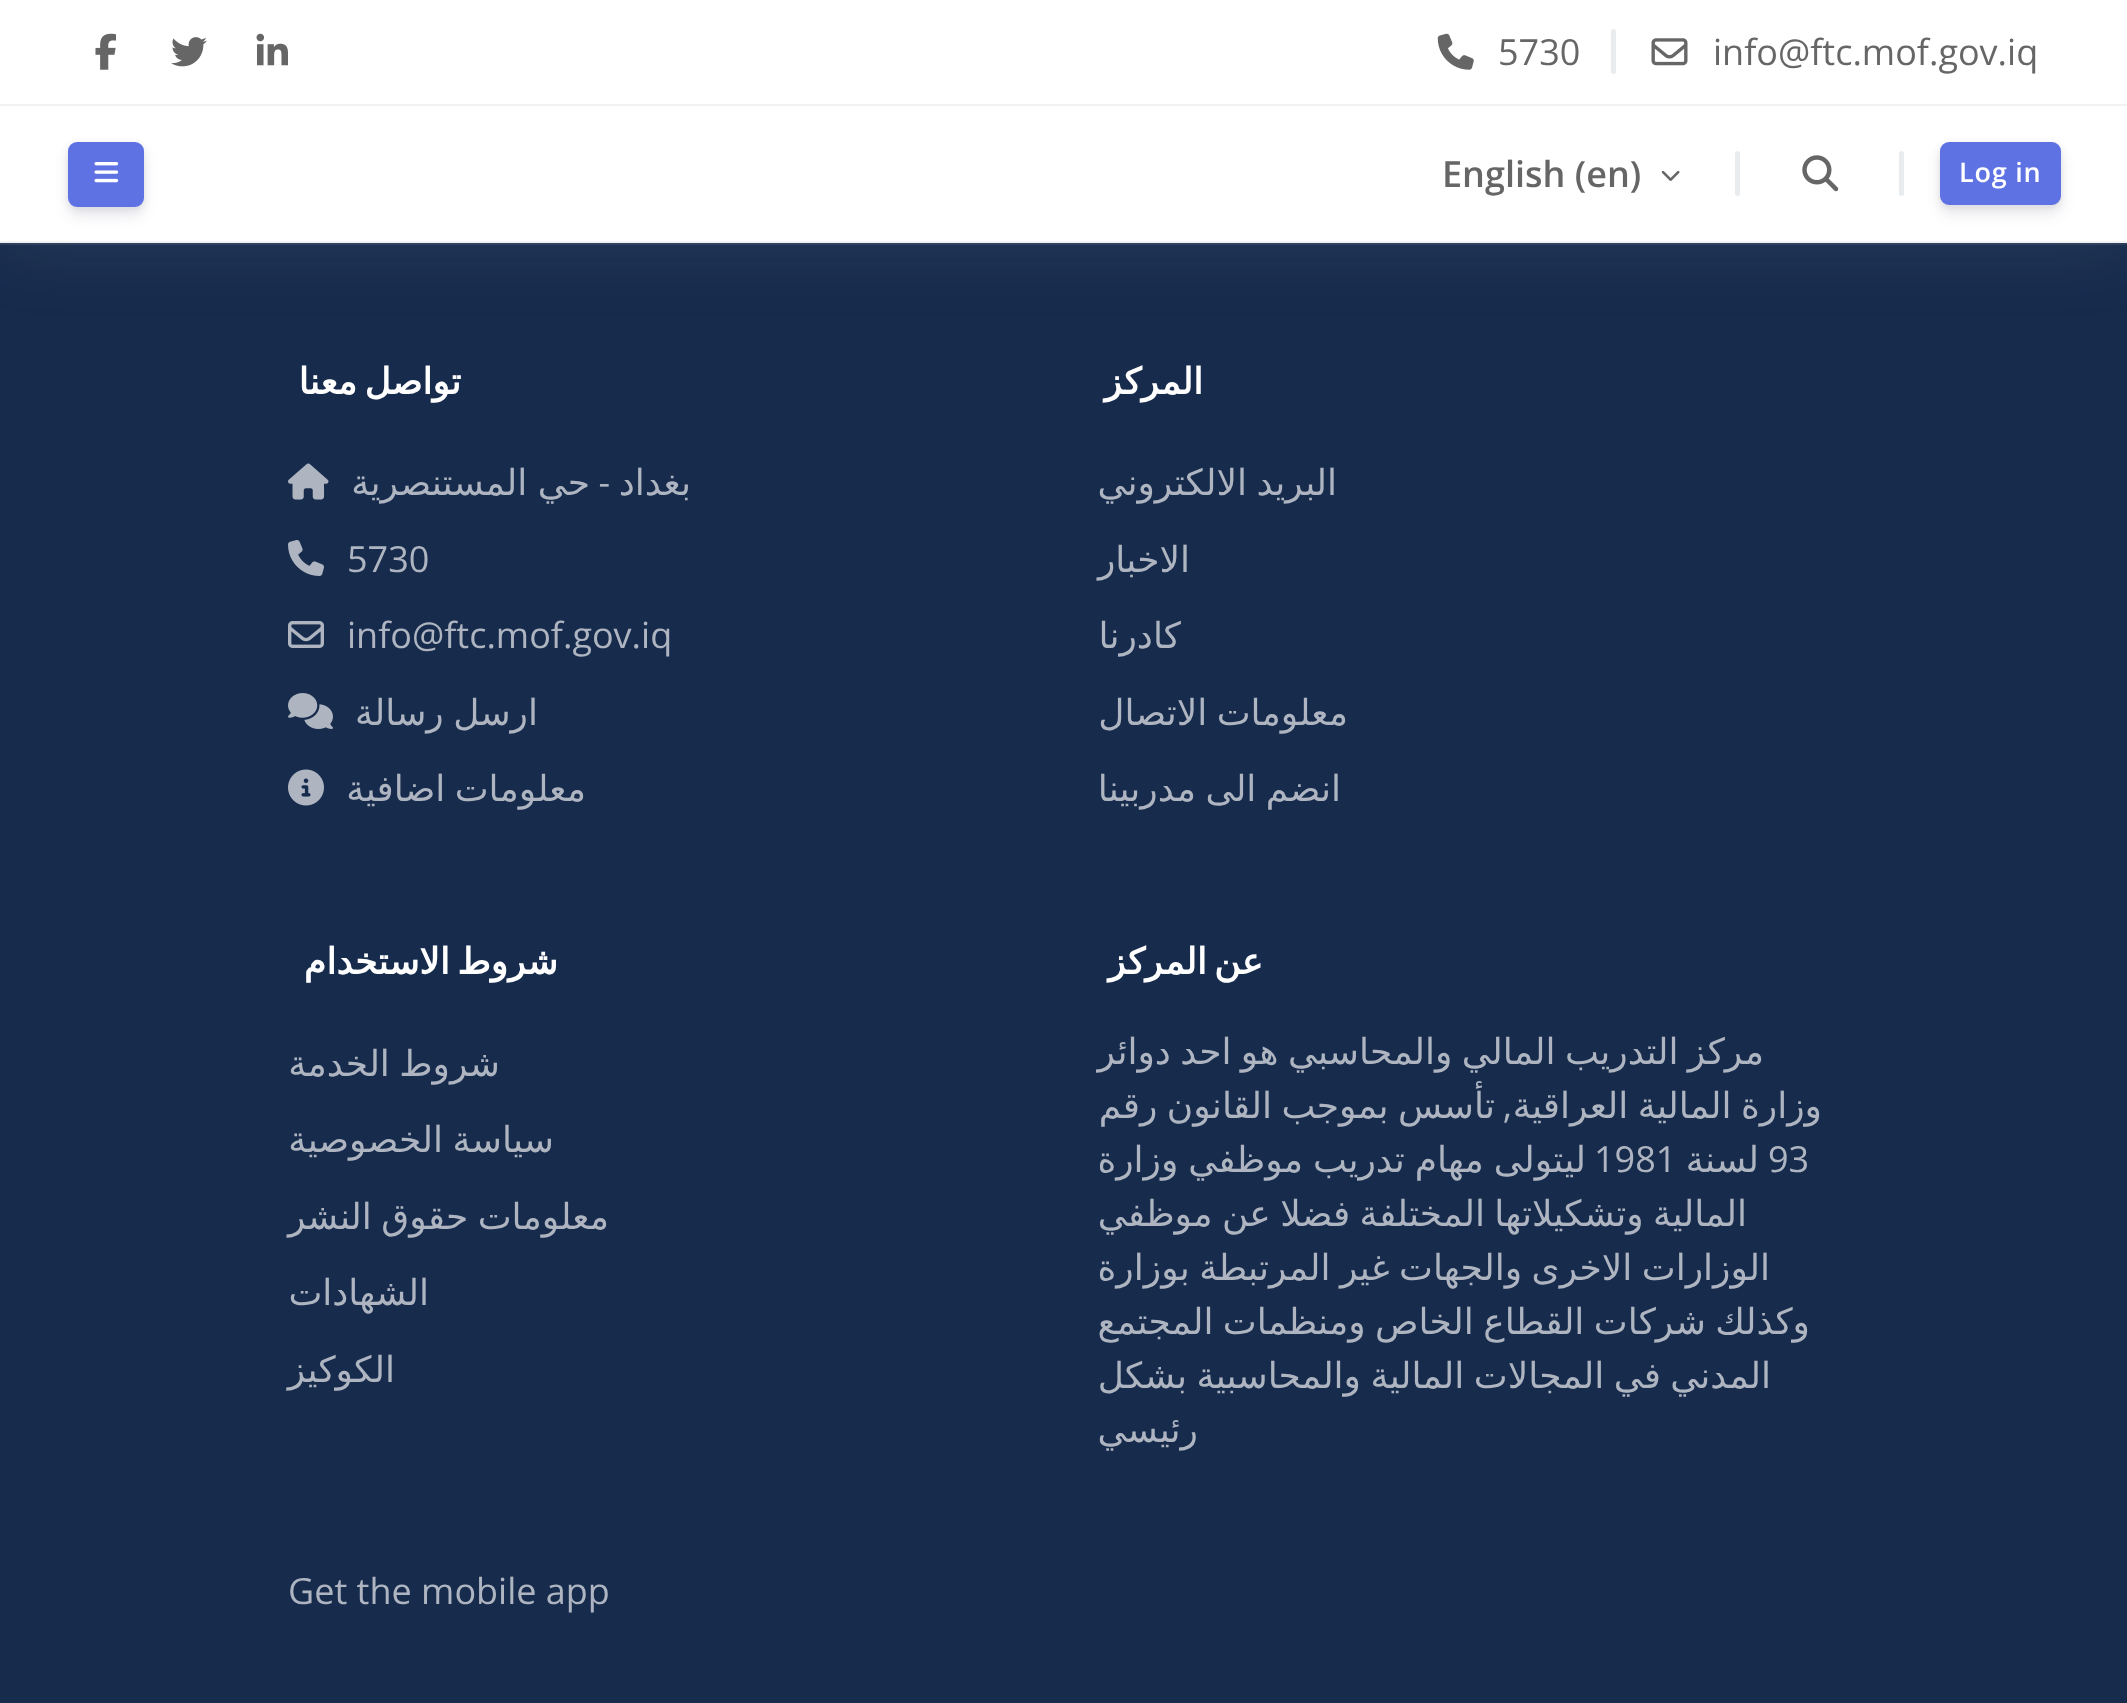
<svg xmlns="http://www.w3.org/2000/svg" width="2127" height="1703">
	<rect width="100%" height="100%" fill="#172B4D" />
	<rect x="0" y="243" width="2127" height="2" fill="#2A3C5B" />
	<rect x="0" y="0" width="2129" height="243" fill="#8898AA" fill-opacity="0.15" filter="blur(36px)" />
	<rect x="0" y="0" width="2127" height="104" fill="#FFFFFF" />
	<rect x="0" y="104" width="2127" height="2" fill="#F2F2F2" />
	<text x="1713" y="65" font-family="Open Sans" font-size="36" fill="#666666">info@ftc.mof.gov.iq</text>
	<image x="1651" y="38" width="37" height="28" href="assets/img1.png" />
	<rect x="1611" y="29" width="5" height="45" rx="2.5" fill="#E9ECEF" />
	<text x="1498" y="65" font-family="Open Sans" font-size="36" fill="#666666">5730</text>
	<image x="1437" y="33" width="37" height="37" href="assets/img2.png" />
	<image x="256" y="33" width="32" height="33" href="assets/img3.png" />
	<image x="171" y="37" width="36" height="30" href="assets/img4.png" />
	<image x="95" y="33" width="21" height="37" href="assets/img5.png" />
	<rect x="0" y="106" width="2127" height="135" fill="#FFFFFF" />
	<rect x="0" y="241" width="2127" height="2" fill="#F2F2F2" />
	<rect x="1940" y="144" width="121" height="63" rx="9" fill="#000000" fill-opacity="0.08" filter="blur(3.5px)" />
	<rect x="1940" y="151" width="121" height="63" rx="9" fill="#32325D" fill-opacity="0.11" filter="blur(7px)" />
	<rect x="1941" y="143" width="119" height="61" rx="8" fill="#5E72E4" stroke="#5E72E4" stroke-width="2" />
	<text x="1959" y="182" font-family="Open Sans" font-size="27" font-weight="600" letter-spacing="0.75" fill="#FFFFFF">Log in</text>
	<rect x="1899" y="151" width="5" height="45" rx="2.5" fill="#E9ECEF" />
	<image x="1802" y="155" width="37" height="37" href="assets/img6.png" />
	<rect x="1735" y="151" width="5" height="45" rx="2.5" fill="#E9ECEF" />
	<image x="1661" y="170" width="19" height="11" href="assets/img7.png" />
	<text x="1442" y="187" font-family="Open Sans" font-size="36" font-weight="600" fill="#666666">English (en)</text>
	<rect x="68" y="144" width="76" height="65" rx="9" fill="#000000" fill-opacity="0.08" filter="blur(3.5px)" />
	<rect x="68" y="151" width="76" height="65" rx="9" fill="#32325D" fill-opacity="0.11" filter="blur(7px)" />
	<rect x="69" y="143" width="74" height="63" rx="8" fill="#5E72E4" stroke="#5E72E4" stroke-width="2" />
	<image x="94" y="162" width="25" height="21" href="assets/img8.png" />
	<text x="1203" y="394" font-family="DejaVu Sans" font-size="36" font-weight="700" letter-spacing="1.1" direction="rtl" fill="#FFFFFF">المركز</text>
	<g font-family="DejaVu Sans" font-size="36" direction="rtl" fill="#AEB5C1">
		<text x="1337" y="495" word-spacing="-2">البريد الالكتروني</text>
		<text x="1190" y="572">الاخبار</text>
		<text x="1181" y="648">كادرنا</text>
		<text x="1348" y="725" word-spacing="-2">معلومات الاتصال</text>
		<text x="1341" y="801" word-spacing="-2">انضم الى مدربينا</text>
	</g>
	<text x="461" y="394" word-spacing="-4" font-family="DejaVu Sans" font-size="36" font-weight="700" letter-spacing="1.1" direction="rtl" fill="#FFFFFF">تواصل معنا</text>
	<text x="691" y="495" font-family="DejaVu Sans" font-size="36" direction="rtl" fill="#AEB5C1">بغداد</text>
	<text x="610" y="495" font-family="Open Sans" font-size="36" direction="rtl" fill="#AEB5C1">-</text>
	<text x="590" y="495" word-spacing="-1" font-family="DejaVu Sans" font-size="36" direction="rtl" fill="#AEB5C1">حي المستنصرية</text>
	<image x="288" y="463" width="41" height="37" href="assets/img9.png" />
	<text x="347" y="572" font-family="Open Sans" font-size="36" fill="#AEB5C1">5730</text>
	<image x="288" y="540" width="36" height="36" href="assets/img10.png" />
	<text x="347" y="648" font-family="Open Sans" font-size="36" fill="#AEB5C1">info@ftc.mof.gov.iq</text>
	<image x="288" y="621" width="36" height="27" href="assets/img11.png" />
	<text x="538" y="725" word-spacing="-2" font-family="DejaVu Sans" font-size="36" direction="rtl" fill="#AEB5C1">ارسل رسالة</text>
	<image x="288" y="693" width="45" height="36" href="assets/img12.png" />
	<text x="586" y="801" word-spacing="-2" font-family="DejaVu Sans" font-size="36" direction="rtl" fill="#AEB5C1">معلومات اضافية</text>
	<image x="288" y="769" width="36" height="37" href="assets/img13.png" />
	<text x="1263" y="974" word-spacing="-4" font-family="DejaVu Sans" font-size="36" font-weight="700" letter-spacing="1.1" direction="rtl" fill="#FFFFFF">عن المركز</text>
	<g font-family="DejaVu Sans" font-size="36" direction="rtl" fill="#AEB5C1">
		<text x="1764" y="1064" word-spacing="-2">مركز التدريب المالي والمحاسبي هو احد دوائر</text>
		<text x="1822" y="1118" word-spacing="-2">وزارة المالية العراقية</text>
	</g>
	<text x="1512" y="1118" font-family="Open Sans" font-size="36" direction="rtl" fill="#AEB5C1">,</text>
	<text x="1495" y="1118" word-spacing="-2" font-family="DejaVu Sans" font-size="36" direction="rtl" fill="#AEB5C1">تأسس بموجب القانون رقم</text>
	<text x="1768" y="1172" font-family="Open Sans" font-size="36" fill="#AEB5C1">93</text>
	<text x="1759" y="1172" font-family="DejaVu Sans" font-size="36" direction="rtl" fill="#AEB5C1">لسنة</text>
	<text x="1594" y="1172" font-family="Open Sans" font-size="36" fill="#AEB5C1">1981</text>
	<g font-family="DejaVu Sans" font-size="36" direction="rtl" fill="#AEB5C1">
		<text x="1586" y="1172" word-spacing="-1.5">ليتولى مهام تدريب موظفي وزارة</text>
		<text x="1747" y="1226" word-spacing="-2">المالية وتشكيلاتها المختلفة فضلا عن موظفي</text>
		<text x="1770" y="1280" word-spacing="-2">الوزارات الاخرى والجهات غير المرتبطة بوزارة</text>
		<text x="1810" y="1334" word-spacing="-2">وكذلك شركات القطاع الخاص ومنظمات المجتمع</text>
		<text x="1771" y="1388" word-spacing="-2">المدني في المجالات المالية والمحاسبية بشكل</text>
		<text x="1198" y="1442">رئيسي</text>
	</g>
	<text x="558" y="974" word-spacing="-4" font-family="DejaVu Sans" font-size="36" font-weight="700" letter-spacing="1.1" direction="rtl" fill="#FFFFFF">شروط الاستخدام</text>
	<g font-family="DejaVu Sans" font-size="36" direction="rtl" fill="#AEB5C1">
		<text x="500" y="1076" word-spacing="-2">شروط الخدمة</text>
		<text x="554" y="1152" word-spacing="-2">سياسة الخصوصية</text>
		<text x="609" y="1229" word-spacing="-2">معلومات حقوق النشر</text>
		<text x="429" y="1305">الشهادات</text>
		<text x="395" y="1382">الكوكيز</text>
	</g>
	<text x="288" y="1604" font-family="Open Sans" font-size="36" fill="#AEB5C1">Get the mobile app</text>
</svg>
